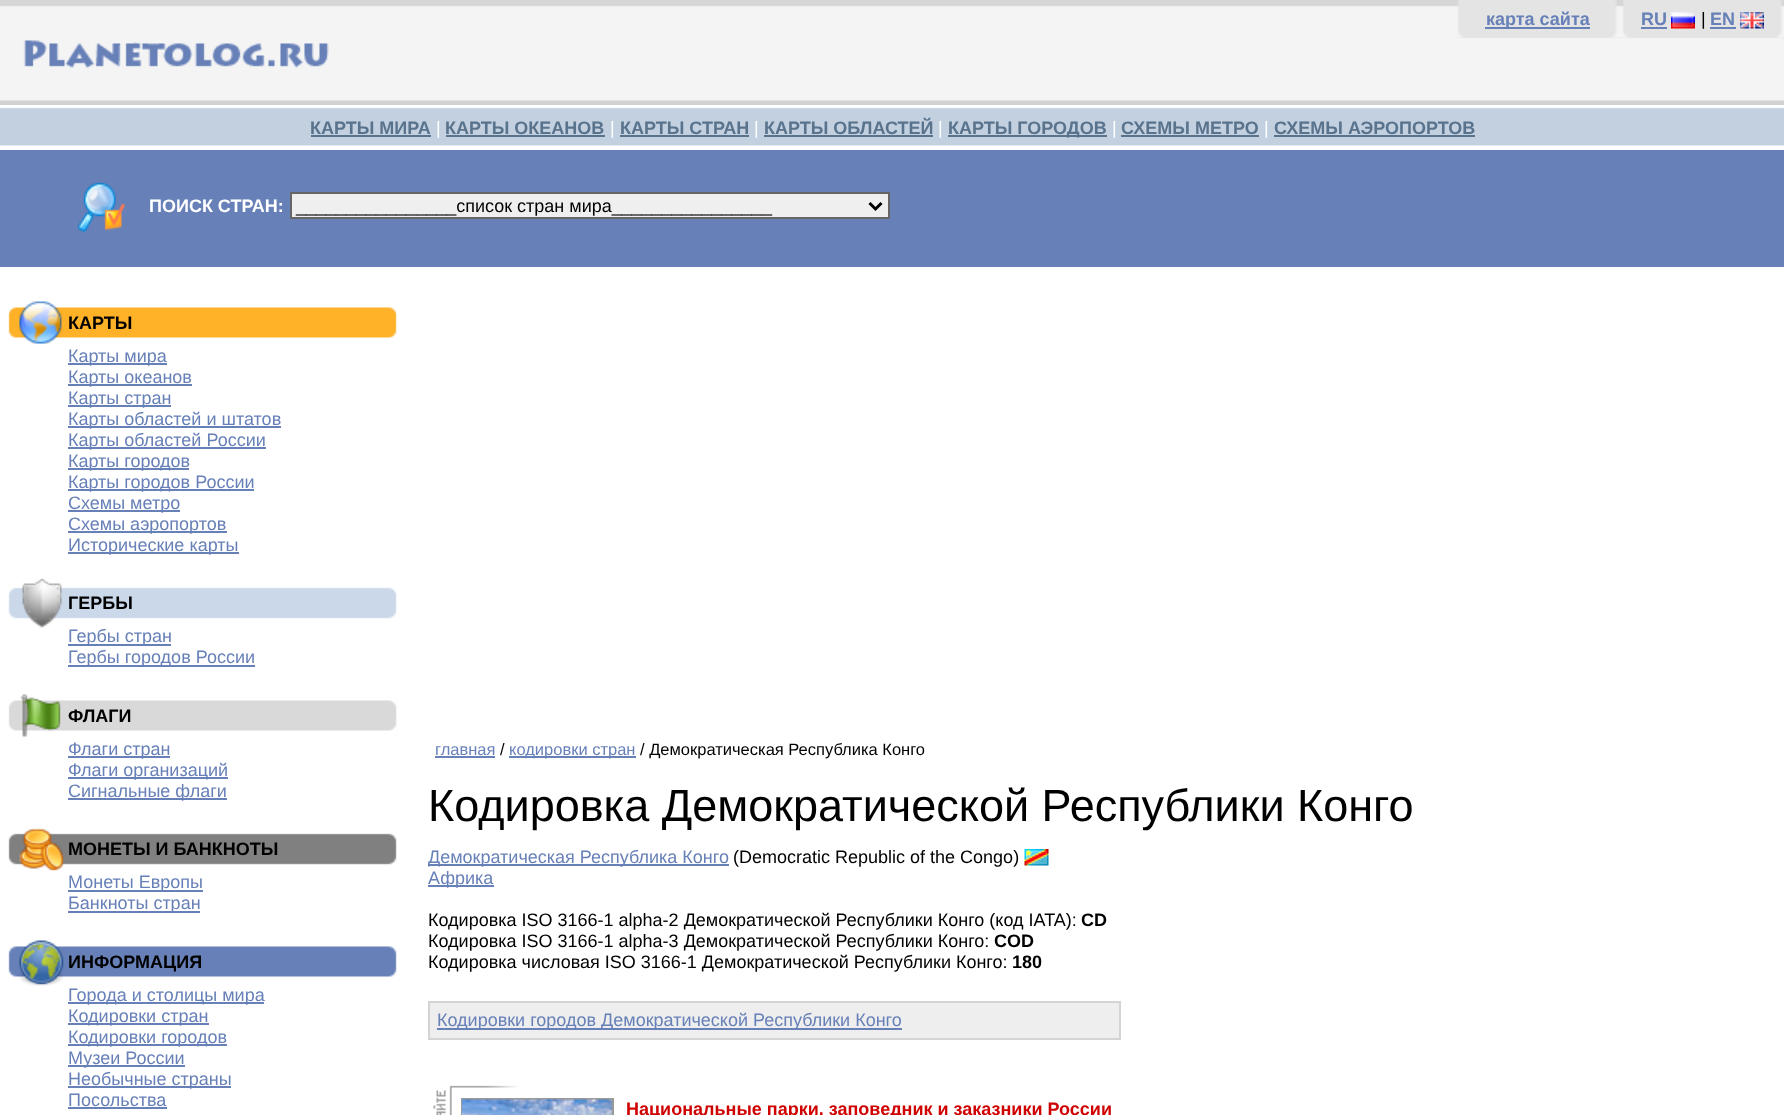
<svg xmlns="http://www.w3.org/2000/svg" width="1784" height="1115">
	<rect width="100%" height="100%" fill="#FFFFFF" />
	<image x="0" y="0" width="1784" height="105" href="assets/img1.png" />
	<rect x="1455" y="37" width="329" height="1" fill="#E4E4E4" />
	<image x="1455" y="0" width="165" height="38" href="assets/img2.png" />
	<rect x="1485" y="27" width="105" height="2" fill="#6780B8" />
	<text x="1486" y="25" font-family="Liberation Sans" font-size="18" font-weight="700" fill="#6780B8">карта сайта</text>
	<image x="1620" y="0" width="164" height="38" href="assets/img3.png" />
	<text x="1641" y="25" font-family="Liberation Sans" font-size="18" font-weight="700" fill="#6780B8">RU</text>
	<rect x="1641" y="27" width="26" height="2" fill="#6780B8" />
	<image x="1671" y="12" width="24" height="17" href="assets/img4.png" />
	<text x="1701" y="25" font-family="Liberation Sans" font-size="18" fill="#000000">|</text>
	<text x="1710" y="25" font-family="Liberation Sans" font-size="18" font-weight="700" fill="#6780B8">EN</text>
	<rect x="1710" y="27" width="26" height="2" fill="#6780B8" />
	<image x="1740" y="12" width="24" height="17" href="assets/img5.png" />
	<image x="23" y="40" width="306" height="28" href="assets/img6.png" />
	<image x="0" y="105" width="1784" height="45" href="assets/img7.png" />
	<text x="310" y="134" font-family="Liberation Sans" font-size="18" font-weight="700" fill="#59738C">КАРТЫ МИРА</text>
	<rect x="311" y="135" width="120" height="2" fill="#59738C" />
	<text x="436" y="134" font-family="Liberation Sans" font-size="18" fill="#FFFFFF">|</text>
	<text x="445" y="134" font-family="Liberation Sans" font-size="18" font-weight="700" fill="#59738C">КАРТЫ ОКЕАНОВ</text>
	<rect x="446" y="135" width="159" height="2" fill="#59738C" />
	<text x="610" y="134" font-family="Liberation Sans" font-size="18" fill="#FFFFFF">|</text>
	<text x="620" y="134" font-family="Liberation Sans" font-size="18" font-weight="700" fill="#59738C">КАРТЫ СТРАН</text>
	<rect x="620" y="135" width="129" height="2" fill="#59738C" />
	<text x="754" y="134" font-family="Liberation Sans" font-size="18" fill="#FFFFFF">|</text>
	<text x="764" y="134" font-family="Liberation Sans" font-size="18" font-weight="700" fill="#59738C">КАРТЫ ОБЛАСТЕЙ</text>
	<rect x="764" y="135" width="169" height="2" fill="#59738C" />
	<text x="938" y="134" font-family="Liberation Sans" font-size="18" fill="#FFFFFF">|</text>
	<rect x="948" y="135" width="159" height="2" fill="#59738C" />
	<text x="948" y="134" font-family="Liberation Sans" font-size="18" font-weight="700" fill="#59738C">КАРТЫ ГОРОДОВ</text>
	<text x="1112" y="134" font-family="Liberation Sans" font-size="18" fill="#FFFFFF">|</text>
	<text x="1121" y="134" font-family="Liberation Sans" font-size="18" font-weight="700" fill="#59738C">СХЕМЫ МЕТРО</text>
	<rect x="1121" y="135" width="138" height="2" fill="#59738C" />
	<text x="1264" y="134" font-family="Liberation Sans" font-size="18" fill="#FFFFFF">|</text>
	<text x="1274" y="134" font-family="Liberation Sans" font-size="18" font-weight="700" fill="#59738C">СХЕМЫ АЭРОПОРТОВ</text>
	<rect x="1274" y="135" width="201" height="2" fill="#59738C" />
	<rect x="0" y="150" width="1784" height="117" fill="#6780B8" />
	<image x="77" y="182" width="48" height="51" href="assets/img8.png" />
	<text x="149" y="212" font-family="Liberation Sans" font-size="18" font-weight="700" fill="#FFFFFF">ПОИСК СТРАН:</text>
	<rect x="291" y="193" width="598" height="25" fill="#EFEFEF" stroke="#666666" stroke-width="2" />
	<path d="M869.5 203L875.5 209L881.5 203" fill="none" stroke="#000000" stroke-width="3" />
	<text x="296" y="212" font-family="Liberation Sans" font-size="18" fill="#000000">________________список стран мира________________</text>
	<image x="8" y="301" width="389" height="43" href="assets/img9.png" />
	<text x="68" y="329" font-family="Liberation Sans" font-size="18" font-weight="700" fill="#000000">КАРТЫ</text>
	<rect x="68" y="363" width="99" height="2" fill="#6780B8" />
	<text x="68" y="362" font-family="Liberation Sans" font-size="18" fill="#6780B8">Карты мира</text>
	<rect x="68" y="384" width="124" height="2" fill="#6780B8" />
	<text x="68" y="383" font-family="Liberation Sans" font-size="18" fill="#6780B8">Карты океанов</text>
	<rect x="68" y="405" width="103" height="2" fill="#6780B8" />
	<text x="68" y="404" font-family="Liberation Sans" font-size="18" fill="#6780B8">Карты стран</text>
	<rect x="68" y="426" width="213" height="2" fill="#6780B8" />
	<text x="68" y="425" font-family="Liberation Sans" font-size="18" fill="#6780B8">Карты областей и штатов</text>
	<rect x="68" y="447" width="198" height="2" fill="#6780B8" />
	<text x="68" y="446" font-family="Liberation Sans" font-size="18" fill="#6780B8">Карты областей России</text>
	<rect x="68" y="468" width="121" height="2" fill="#6780B8" />
	<text x="68" y="467" font-family="Liberation Sans" font-size="18" fill="#6780B8">Карты городов</text>
	<rect x="68" y="489" width="186" height="2" fill="#6780B8" />
	<text x="68" y="488" font-family="Liberation Sans" font-size="18" fill="#6780B8">Карты городов России</text>
	<rect x="68" y="510" width="112" height="2" fill="#6780B8" />
	<text x="68" y="509" font-family="Liberation Sans" font-size="18" fill="#6780B8">Схемы метро</text>
	<rect x="68" y="531" width="159" height="2" fill="#6780B8" />
	<text x="68" y="530" font-family="Liberation Sans" font-size="18" fill="#6780B8">Схемы аэропортов</text>
	<rect x="68" y="552" width="171" height="2" fill="#6780B8" />
	<text x="68" y="551" font-family="Liberation Sans" font-size="18" fill="#6780B8">Исторические карты</text>
	<image x="8" y="578" width="389" height="50" href="assets/img10.png" />
	<text x="68" y="609" font-family="Liberation Sans" font-size="18" font-weight="700" fill="#000000">ГЕРБЫ</text>
	<rect x="68" y="644" width="103" height="2" fill="#6780B8" />
	<text x="68" y="642" font-family="Liberation Sans" font-size="18" fill="#6780B8">Гербы стран</text>
	<rect x="68" y="665" width="187" height="2" fill="#6780B8" />
	<text x="68" y="663" font-family="Liberation Sans" font-size="18" fill="#6780B8">Гербы городов России</text>
	<image x="8" y="694" width="389" height="43" href="assets/img11.png" />
	<text x="68" y="722" font-family="Liberation Sans" font-size="18" font-weight="700" fill="#000000">ФЛАГИ</text>
	<rect x="68" y="756" width="102" height="2" fill="#6780B8" />
	<text x="68" y="755" font-family="Liberation Sans" font-size="18" fill="#6780B8">Флаги стран</text>
	<rect x="68" y="777" width="160" height="2" fill="#6780B8" />
	<text x="68" y="776" font-family="Liberation Sans" font-size="18" fill="#6780B8">Флаги организаций</text>
	<rect x="68" y="798" width="159" height="2" fill="#6780B8" />
	<text x="68" y="797" font-family="Liberation Sans" font-size="18" fill="#6780B8">Сигнальные флаги</text>
	<image x="8" y="828" width="389" height="43" href="assets/img12.png" />
	<text x="68" y="855" font-family="Liberation Sans" font-size="18" font-weight="700" fill="#000000">МОНЕТЫ И БАНКНОТЫ</text>
	<rect x="68" y="890" width="135" height="2" fill="#6780B8" />
	<text x="68" y="888" font-family="Liberation Sans" font-size="18" fill="#6780B8">Монеты Европы</text>
	<rect x="68" y="911" width="132" height="2" fill="#6780B8" />
	<text x="68" y="909" font-family="Liberation Sans" font-size="18" fill="#6780B8">Банкноты стран</text>
	<image x="8" y="940" width="389" height="46" href="assets/img13.png" />
	<text x="68" y="968" font-family="Liberation Sans" font-size="18" font-weight="700" fill="#000000">ИНФОРМАЦИЯ</text>
	<rect x="68" y="1002" width="196" height="2" fill="#6780B8" />
	<text x="68" y="1001" font-family="Liberation Sans" font-size="18" fill="#6780B8">Города и столицы мира</text>
	<rect x="68" y="1023" width="141" height="2" fill="#6780B8" />
	<text x="68" y="1022" font-family="Liberation Sans" font-size="18" fill="#6780B8">Кодировки стран</text>
	<rect x="68" y="1044" width="159" height="2" fill="#6780B8" />
	<text x="68" y="1043" font-family="Liberation Sans" font-size="18" fill="#6780B8">Кодировки городов</text>
	<rect x="68" y="1065" width="117" height="2" fill="#6780B8" />
	<text x="68" y="1064" font-family="Liberation Sans" font-size="18" fill="#6780B8">Музеи России</text>
	<rect x="68" y="1086" width="163" height="2" fill="#6780B8" />
	<g font-family="Liberation Sans" font-size="18" fill="#6780B8">
		<text x="68" y="1085">Необычные страны</text>
		<text x="68" y="1106">Посольства</text>
	</g>
	<rect x="68" y="1107" width="99" height="2" fill="#6780B8" />
	<text x="435" y="755" font-family="Liberation Sans" font-size="16.5" fill="#6780B8">главная</text>
	<rect x="435" y="756" width="60" height="2" fill="#6780B8" />
	<text x="500" y="755" font-family="Liberation Sans" font-size="16.5" fill="#000000">/</text>
	<rect x="509" y="756" width="127" height="2" fill="#6780B8" />
	<text x="509" y="755" font-family="Liberation Sans" font-size="16.5" fill="#6780B8">кодировки стран</text>
	<text x="640" y="755" font-family="Liberation Sans" font-size="16.5" fill="#000000">/ Демократическая Республика Конго</text>
	<text x="428" y="821" font-family="Liberation Sans" font-size="45" fill="#000000">Кодировка Демократической Республики Конго</text>
	<rect x="428" y="864" width="301" height="2" fill="#6780B8" />
	<text x="428" y="863" font-family="Liberation Sans" font-size="18" fill="#6780B8">Демократическая Республика Конго</text>
	<text x="733" y="863" font-family="Liberation Sans" font-size="18" fill="#000000">(Democratic Republic of the Congo)</text>
	<image x="1024" y="849" width="25" height="17" href="assets/img14.png" />
	<rect x="428" y="885" width="66" height="2" fill="#6780B8" />
	<text x="428" y="884" font-family="Liberation Sans" font-size="18" fill="#6780B8">Африка</text>
	<text x="428" y="926" font-family="Liberation Sans" font-size="18" fill="#000000">Кодировка ISO 3166-1 alpha-2 Демократической Республики Конго (код IATA):</text>
	<text x="1081" y="926" font-family="Liberation Sans" font-size="18" font-weight="700" fill="#000000">CD</text>
	<text x="428" y="947" font-family="Liberation Sans" font-size="18" fill="#000000">Кодировка ISO 3166-1 alpha-3 Демократической Республики Конго:</text>
	<text x="994" y="947" font-family="Liberation Sans" font-size="18" font-weight="700" fill="#000000">COD</text>
	<text x="428" y="968" font-family="Liberation Sans" font-size="18" fill="#000000">Кодировка числовая ISO 3166-1 Демократической Республики Конго:</text>
	<text x="1012" y="968" font-family="Liberation Sans" font-size="18" font-weight="700" fill="#000000">180</text>
	<rect x="429" y="1002" width="691" height="37" fill="#EEEEEE" stroke="#D4D4D4" stroke-width="2" />
	<rect x="437" y="1028" width="465" height="2" fill="#6780B8" />
	<text x="437" y="1026" font-family="Liberation Sans" font-size="18" fill="#6780B8">Кодировки городов Демократической Республики Конго</text>
	<image x="433" y="1085" width="85" height="30" href="assets/img15.png" />
	<rect x="462" y="1099" width="151" height="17" fill="none" stroke="#999999" stroke-width="2" />
	<image x="462" y="1099" width="150" height="16" href="assets/img16.png" />
	<text x="626" y="1115" font-family="Liberation Sans" font-size="18" font-weight="700" fill="#CF0101">Национальные парки, заповедник и заказники России</text>
</svg>
